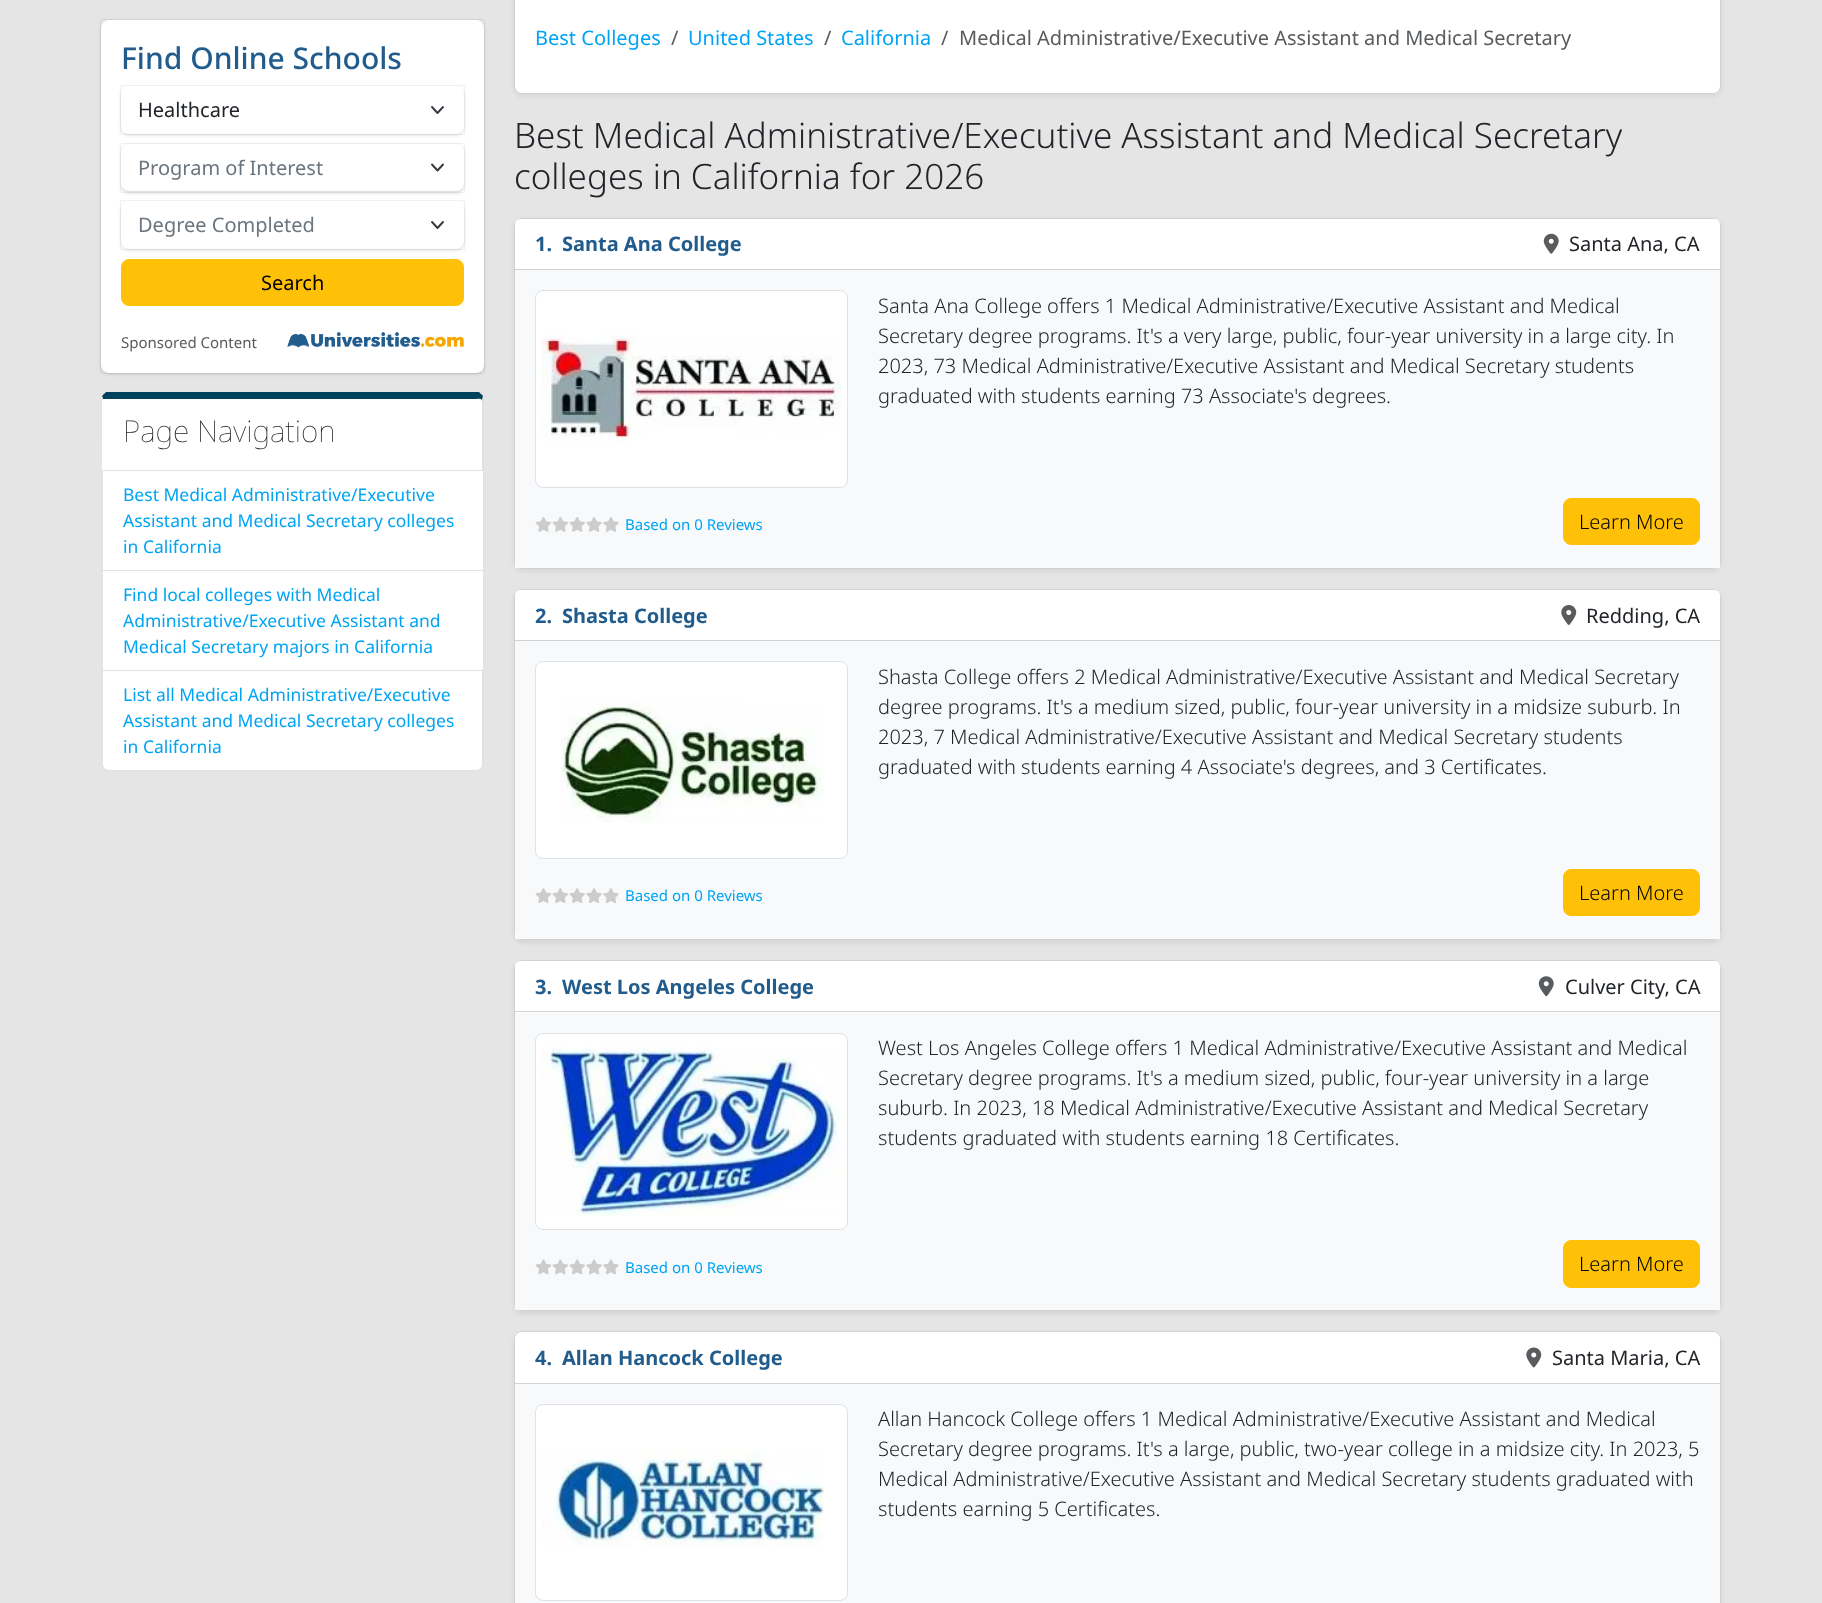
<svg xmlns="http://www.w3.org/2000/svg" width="1822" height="1603">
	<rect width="100%" height="100%" fill="#E5E5E5" />
	<rect x="101" y="21" width="383" height="353" rx="8" fill="#000000" fill-opacity="0.06" filter="blur(1px)" />
	<rect x="101" y="21" width="383" height="353" rx="8" fill="#000000" fill-opacity="0.1" filter="blur(2px)" />
	<rect x="100.5" y="19.5" width="384" height="354" fill="none" stroke="#111827" stroke-opacity="0.05" />
	<rect x="101" y="20" width="383" height="353" rx="8" fill="#FFFFFF" />
	<text x="121" y="69" font-family="Noto Sans" font-size="30" font-weight="500" fill="#225C8C">Find Online Schools</text>
	<rect x="121" y="88" width="343" height="47" rx="8" fill="#000000" fill-opacity="0.06" filter="blur(1px)" />
	<rect x="121" y="88" width="343" height="47" rx="8" fill="#000000" fill-opacity="0.1" filter="blur(2px)" />
	<rect x="120.5" y="85.5" width="344" height="49" fill="none" stroke="#111827" stroke-opacity="0.05" />
	<rect x="121" y="86" width="343" height="48" rx="8" fill="#FFFFFF" />
	<path d="M432 107L437.5 113L443 107" fill="none" stroke="#343A40" stroke-width="1.9" stroke-linecap="round" stroke-linejoin="round" />
	<text x="138" y="117" font-family="Noto Sans" font-size="20" fill="#212529">Healthcare</text>
	<rect x="121" y="145" width="343" height="48" rx="8" fill="#000000" fill-opacity="0.06" filter="blur(1px)" />
	<rect x="121" y="145" width="343" height="48" rx="8" fill="#000000" fill-opacity="0.1" filter="blur(2px)" />
	<rect x="120.5" y="143.5" width="344" height="49" fill="none" stroke="#111827" stroke-opacity="0.05" />
	<rect x="121" y="144" width="343" height="47" rx="8" fill="#FFFFFF" />
	<path d="M432 164.5L437.5 170.5L443 164.5" fill="none" stroke="#343A40" stroke-width="1.9" stroke-linecap="round" stroke-linejoin="round" />
	<text x="138" y="175" font-family="Noto Sans" font-size="20" fill="#6C757D">Program of Interest</text>
	<rect x="121" y="203" width="343" height="47" rx="8" fill="#000000" fill-opacity="0.06" filter="blur(1px)" />
	<rect x="121" y="203" width="343" height="47" rx="8" fill="#000000" fill-opacity="0.1" filter="blur(2px)" />
	<rect x="120.5" y="200.5" width="344" height="49" fill="none" stroke="#111827" stroke-opacity="0.05" />
	<rect x="121" y="201" width="343" height="48" rx="8" fill="#FFFFFF" />
	<path d="M432 222L437.5 228L443 222" fill="none" stroke="#343A40" stroke-width="1.9" stroke-linecap="round" stroke-linejoin="round" />
	<text x="138" y="232" font-family="Noto Sans" font-size="20" fill="#6C757D">Degree Completed</text>
	<rect x="121.5" y="259.5" width="342" height="46" rx="7.5" fill="#FFC107" stroke="#FFC107" />
	<text x="261" y="290" font-family="Noto Sans" font-size="20" fill="#000000">Search</text>
	<text x="121" y="348" font-family="Noto Sans" font-size="15" fill="#595C5F">Sponsored Content</text>
	<image x="287" y="332" width="177" height="16" href="assets/img1.png" />
	<path d="M109 399H476C480 399 482 399 482 400V470H102V400C102 399 105 399 109 399Z" fill="#FFFFFF" />
	<path d="M109 399H103L102 396C103 395 105 393 106 392H479C480 393 482 395 483 396L482 401C482 398 478 399 476 399Z" fill="#00415C" />
	<path d="M484 471L482 470V401L483 396L484 398Z" fill="#DEE2E6" />
	<path d="M484 471H102V470H482Z" fill="#DEE2E6" />
	<path d="M101 398L102 396L103 399L102 400V470V471Z" fill="#DEE2E6" />
	<text x="123" y="442" font-family="Noto Sans" font-size="30" font-weight="100" fill="#212529">Page Navigation</text>
	<rect x="103" y="471" width="380" height="99" fill="#FFFFFF" />
	<rect x="483" y="471" width="1" height="200" fill="#DEE2E6" />
	<rect x="101" y="570" width="383" height="1" fill="#DEE2E6" />
	<rect x="101" y="471" width="1" height="100" fill="#DEE2E6" />
	<g font-family="Noto Sans" font-size="17.5" fill="#00A4F3">
		<text x="123" y="501">Best Medical Administrative/Executive</text>
		<text x="123" y="527">Assistant and Medical Secretary colleges</text>
		<text x="123" y="553">in California</text>
	</g>
	<rect x="103" y="571" width="380" height="99" fill="#FFFFFF" />
	<rect x="101" y="670" width="383" height="1" fill="#DEE2E6" />
	<rect x="101" y="571" width="1" height="100" fill="#DEE2E6" />
	<g font-family="Noto Sans" font-size="17.5" fill="#00A4F3">
		<text x="123" y="601">Find local colleges with Medical</text>
		<text x="123" y="627">Administrative/Executive Assistant and</text>
		<text x="123" y="653">Medical Secretary majors in California</text>
	</g>
	<path d="M103 671H483V764C483 767.5 480.5 770 477 770H109C105.5 770 103 767.5 103 764Z" fill="#FFFFFF" />
	<path d="M101 671H484V764C484 768 480 771 476 771H109C105 771 101 768 101 764ZM102 671H482V764C482 767 480 770 476 770H109C105 770 102 767 102 764Z" fill="#DEE2E6" fill-rule="evenodd" />
	<g font-family="Noto Sans" font-size="17.5" fill="#00A4F3">
		<text x="123" y="701">List all Medical Administrative/Executive</text>
		<text x="123" y="727">Assistant and Medical Secretary colleges</text>
		<text x="123" y="753">in California</text>
	</g>
	<rect x="514" y="-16" width="1207" height="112" rx="8" fill="#000000" fill-opacity="0.07" filter="blur(2.5px)" />
	<rect x="514" y="-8" width="1207" height="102" rx="8" fill="#FFFFFF" />
	<rect x="514.5" y="-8.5" width="1206" height="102" rx="7.5" fill="none" stroke="#000000" stroke-opacity="0.18" />
	<text x="535" y="45" font-family="Noto Sans" font-size="20" fill="#00A4F3">Best Colleges</text>
	<text x="671" y="45" font-family="Noto Sans" font-size="20" fill="#595C5F">/</text>
	<text x="688" y="45" font-family="Noto Sans" font-size="20" fill="#00A4F3">United States</text>
	<text x="824" y="45" font-family="Noto Sans" font-size="20" fill="#595C5F">/</text>
	<text x="841" y="45" font-family="Noto Sans" font-size="20" fill="#00A4F3">California</text>
	<g font-family="Noto Sans" font-size="20" fill="#595C5F">
		<text x="941" y="45">/</text>
		<text x="959" y="45">Medical Administrative/Executive Assistant and Medical Secretary</text>
	</g>
	<g font-family="Noto Sans" font-size="35" font-weight="300" fill="#212529">
		<text x="514" y="148">Best Medical Administrative/Executive Assistant and Medical Secretary</text>
		<text x="514" y="189">colleges in California for 2026</text>
	</g>
	<rect x="514" y="220" width="1207" height="351" rx="8" fill="#000000" fill-opacity="0.07" filter="blur(2.5px)" />
	<rect x="514" y="218" width="1207" height="351" rx="8" fill="#FFFFFF" />
	<rect x="514.5" y="218.5" width="1206" height="350" rx="7.5" fill="none" stroke="#000000" stroke-opacity="0.18" />
	<path d="M521 219H1714C1717.5 219 1720 221.5 1720 225V270H515V225C515 221.5 517.5 219 521 219Z" fill="#FFFFFF" />
	<rect x="515" y="269" width="1205" height="1" fill="#D2D2D2" />
	<g font-family="Noto Sans" font-size="20" font-weight="700" fill="#225C8C">
		<text x="535" y="251">1.</text>
		<text x="562" y="251">Santa Ana College</text>
	</g>
	<image x="1543" y="233" width="16" height="21" href="assets/img2.png" />
	<text x="1569" y="251" font-family="Noto Sans" font-size="20" fill="#212529">Santa Ana, CA</text>
	<rect x="515" y="270" width="1205" height="298" fill="#F8F9FA" />
	<rect x="535.5" y="290.5" width="312" height="197" rx="7.5" fill="#FFFFFF" stroke="#DEE2E6" />
	<image x="541" y="335" width="300" height="106" href="assets/img3.png" />
	<g font-family="Noto Sans" font-size="20" font-weight="300" fill="#212529">
		<text x="878" y="313">Santa Ana College offers 1 Medical Administrative/Executive Assistant and Medical</text>
		<text x="878" y="343">Secretary degree programs. It's a very large, public, four-year university in a large city. In</text>
		<text x="878" y="373">2023, 73 Medical Administrative/Executive Assistant and Medical Secretary students</text>
		<text x="878" y="403">graduated with students earning 73 Associate's degrees.</text>
	</g>
	<image x="535" y="517" width="84" height="15" href="assets/img4.png" />
	<text x="625" y="530" font-family="Noto Sans" font-size="15" fill="#00A4F3">Based on 0 Reviews</text>
	<rect x="1563.5" y="498.5" width="136" height="46" rx="7.5" fill="#FFC107" stroke="#FFC107" />
	<text x="1579" y="529" font-family="Noto Sans" font-size="20" font-weight="300" fill="#000000">Learn More</text>
	<rect x="514" y="591" width="1207" height="352" rx="8" fill="#000000" fill-opacity="0.07" filter="blur(2.5px)" />
	<rect x="514" y="589" width="1207" height="351" rx="8" fill="#FFFFFF" />
	<rect x="514.5" y="589.5" width="1206" height="350" rx="7.5" fill="none" stroke="#000000" stroke-opacity="0.18" />
	<path d="M521 590H1714C1717.5 590 1720 592.5 1720 596V641H515V596C515 592.5 517.5 590 521 590Z" fill="#FFFFFF" />
	<rect x="515" y="640" width="1205" height="1" fill="#D2D2D2" />
	<g font-family="Noto Sans" font-size="20" font-weight="700" fill="#225C8C">
		<text x="535" y="623">2.</text>
		<text x="562" y="623">Shasta College</text>
	</g>
	<image x="1561" y="605" width="16" height="20" href="assets/img5.png" />
	<text x="1586" y="623" font-family="Noto Sans" font-size="20" fill="#212529">Redding, CA</text>
	<rect x="515" y="641" width="1205" height="298" fill="#F8F9FA" />
	<rect x="535.5" y="661.5" width="312" height="197" rx="7.5" fill="#FFFFFF" stroke="#DEE2E6" />
	<image x="561" y="702" width="263" height="121" href="assets/img6.png" />
	<g font-family="Noto Sans" font-size="20" font-weight="300" fill="#212529">
		<text x="878" y="684">Shasta College offers 2 Medical Administrative/Executive Assistant and Medical Secretary</text>
		<text x="878" y="714">degree programs. It's a medium sized, public, four-year university in a midsize suburb. In</text>
		<text x="878" y="744">2023, 7 Medical Administrative/Executive Assistant and Medical Secretary students</text>
		<text x="878" y="774">graduated with students earning 4 Associate's degrees, and 3 Certificates.</text>
	</g>
	<image x="535" y="888" width="84" height="15" href="assets/img7.png" />
	<text x="625" y="901" font-family="Noto Sans" font-size="15" fill="#00A4F3">Based on 0 Reviews</text>
	<rect x="1563.5" y="869.5" width="136" height="46" rx="7.5" fill="#FFC107" stroke="#FFC107" />
	<text x="1579" y="900" font-family="Noto Sans" font-size="20" font-weight="300" fill="#000000">Learn More</text>
	<rect x="514" y="963" width="1207" height="351" rx="8" fill="#000000" fill-opacity="0.07" filter="blur(2.5px)" />
	<rect x="514" y="960" width="1207" height="351" rx="8" fill="#FFFFFF" />
	<rect x="514.5" y="960.5" width="1206" height="350" rx="7.5" fill="none" stroke="#000000" stroke-opacity="0.18" />
	<path d="M521 961H1714C1717.5 961 1720 963.5 1720 967V1013H515V967C515 963.5 517.5 961 521 961Z" fill="#FFFFFF" />
	<rect x="515" y="1011" width="1205" height="1" fill="#D2D2D2" />
	<g font-family="Noto Sans" font-size="20" font-weight="700" fill="#225C8C">
		<text x="535" y="994">3.</text>
		<text x="562" y="994">West Los Angeles College</text>
	</g>
	<image x="1538" y="976" width="16" height="21" href="assets/img8.png" />
	<text x="1565" y="994" font-family="Noto Sans" font-size="20" fill="#212529">Culver City, CA</text>
	<rect x="515" y="1013" width="1205" height="297" fill="#F8F9FA" />
	<rect x="535.5" y="1033.5" width="312" height="196" rx="7.5" fill="#FFFFFF" stroke="#DEE2E6" />
	<image x="542" y="1047" width="299" height="169" href="assets/img9.png" />
	<g font-family="Noto Sans" font-size="20" font-weight="300" fill="#212529">
		<text x="878" y="1055">West Los Angeles College offers 1 Medical Administrative/Executive Assistant and Medical</text>
		<text x="878" y="1085">Secretary degree programs. It's a medium sized, public, four-year university in a large</text>
		<text x="878" y="1115">suburb. In 2023, 18 Medical Administrative/Executive Assistant and Medical Secretary</text>
		<text x="878" y="1145">students graduated with students earning 18 Certificates.</text>
	</g>
	<image x="535" y="1259" width="84" height="16" href="assets/img10.png" />
	<text x="625" y="1273" font-family="Noto Sans" font-size="15" fill="#00A4F3">Based on 0 Reviews</text>
	<rect x="1563.5" y="1240.5" width="136" height="47" rx="7.5" fill="#FFC107" stroke="#FFC107" />
	<text x="1579" y="1271" font-family="Noto Sans" font-size="20" font-weight="300" fill="#000000">Learn More</text>
	<rect x="514" y="1334" width="1207" height="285" rx="8" fill="#000000" fill-opacity="0.07" filter="blur(2.5px)" />
	<rect x="514" y="1331" width="1207" height="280" rx="8" fill="#FFFFFF" />
	<rect x="514.5" y="1331.5" width="1206" height="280" rx="7.5" fill="none" stroke="#000000" stroke-opacity="0.18" />
	<path d="M521 1333H1714C1717.5 1333 1720 1335.5 1720 1339V1384H515V1339C515 1335.5 517.5 1333 521 1333Z" fill="#FFFFFF" />
	<rect x="515" y="1383" width="1205" height="1" fill="#D2D2D2" />
	<g font-family="Noto Sans" font-size="20" font-weight="700" fill="#225C8C">
		<text x="535" y="1365">4.</text>
		<text x="562" y="1365">Allan Hancock College</text>
	</g>
	<image x="1526" y="1347" width="16" height="21" href="assets/img11.png" />
	<text x="1552" y="1365" font-family="Noto Sans" font-size="20" fill="#212529">Santa Maria, CA</text>
	<rect x="515" y="1384" width="1205" height="219" fill="#F8F9FA" />
	<rect x="535.5" y="1404.5" width="312" height="196" rx="7.5" fill="#FFFFFF" stroke="#DEE2E6" />
	<image x="542" y="1450" width="282" height="97" href="assets/img12.png" />
	<g font-family="Noto Sans" font-size="20" font-weight="300" fill="#212529">
		<text x="878" y="1426">Allan Hancock College offers 1 Medical Administrative/Executive Assistant and Medical</text>
		<text x="878" y="1456">Secretary degree programs. It's a large, public, two-year college in a midsize city. In 2023, 5</text>
		<text x="878" y="1486">Medical Administrative/Executive Assistant and Medical Secretary students graduated with</text>
		<text x="878" y="1516">students earning 5 Certificates.</text>
	</g>
</svg>
